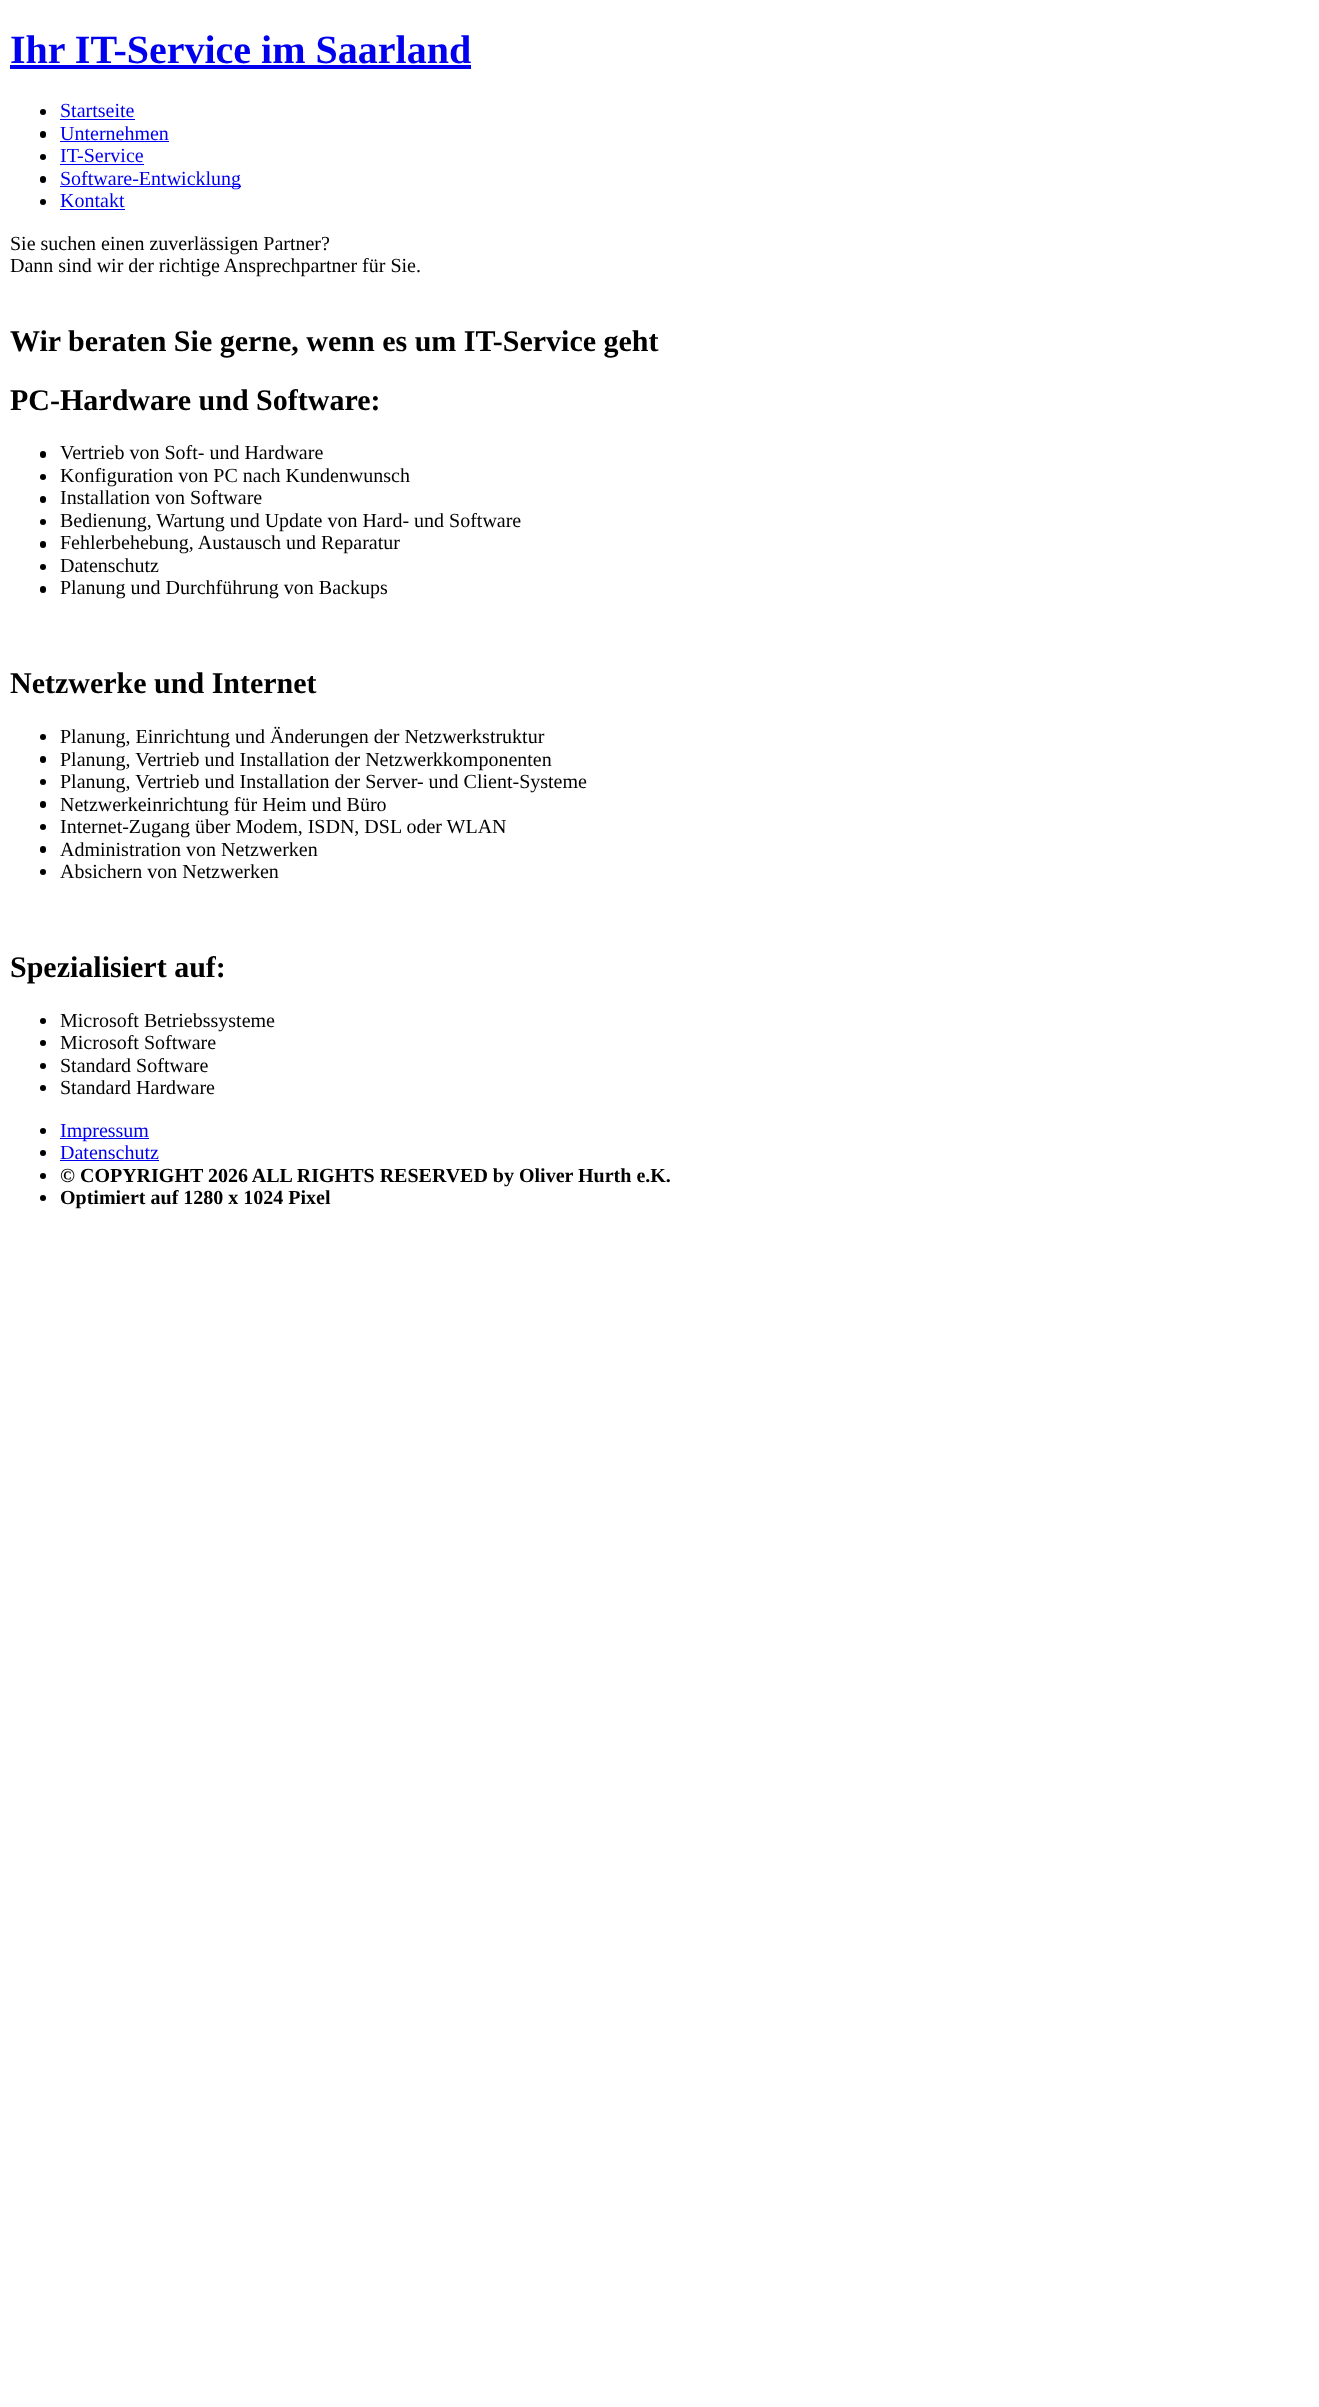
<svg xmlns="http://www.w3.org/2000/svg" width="1319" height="2407">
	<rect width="100%" height="100%" fill="#FFFFFF" />
	<text x="10" y="63" font-family="Liberation Serif" font-size="40" font-weight="700" fill="#0000EE">Ihr IT-Service im Saarland</text>
	<rect x="10" y="65" width="461" height="4" fill="#0000EE" />
	<circle cx="43" cy="112" r="3" fill="#000000" />
	<text x="60" y="117" font-family="Liberation Serif" font-size="20" fill="#0000EE">Startseite</text>
	<rect x="60" y="119" width="75" height="1" fill="#0000EE" />
	<rect x="40" y="131" width="6" height="7" rx="3" fill="#000000" />
	<text x="60" y="140" font-family="Liberation Serif" font-size="20" fill="#0000EE">Unternehmen</text>
	<rect x="60" y="141" width="109" height="1" fill="#0000EE" />
	<circle cx="43" cy="157" r="3" fill="#000000" />
	<text x="60" y="162" font-family="Liberation Serif" font-size="20" fill="#0000EE">IT-Service</text>
	<rect x="60" y="164" width="84" height="1" fill="#0000EE" />
	<rect x="40" y="176" width="6" height="7" rx="3" fill="#000000" />
	<rect x="60" y="186" width="181" height="1" fill="#0000EE" />
	<text x="60" y="185" font-family="Liberation Serif" font-size="20" fill="#0000EE">Software-Entwicklung</text>
	<circle cx="43" cy="202" r="3" fill="#000000" />
	<text x="60" y="207" font-family="Liberation Serif" font-size="20" fill="#0000EE">Kontakt</text>
	<rect x="60" y="209" width="65" height="1" fill="#0000EE" />
	<g font-family="Liberation Serif" font-size="20" fill="#000000">
		<text x="10" y="250">Sie suchen einen zuverlässigen Partner?</text>
		<text x="10" y="272">Dann sind wir der richtige Ansprechpartner für Sie.</text>
	</g>
	<g font-family="Liberation Serif" font-size="30" font-weight="700" fill="#000000">
		<text x="10" y="351">Wir beraten Sie gerne, wenn es um IT-Service geht</text>
		<text x="10" y="410">PC-Hardware und Software:</text>
	</g>
	<rect x="40" y="451" width="6" height="7" rx="3" fill="#000000" />
	<text x="60" y="459" font-family="Liberation Serif" font-size="20" fill="#000000">Vertrieb von Soft- und Hardware</text>
	<circle cx="43" cy="477" r="3" fill="#000000" />
	<text x="60" y="482" font-family="Liberation Serif" font-size="20" fill="#000000">Konfiguration von PC nach Kundenwunsch</text>
	<rect x="40" y="496" width="6" height="7" rx="3" fill="#000000" />
	<text x="60" y="504" font-family="Liberation Serif" font-size="20" fill="#000000">Installation von Software</text>
	<circle cx="43" cy="522" r="3" fill="#000000" />
	<text x="60" y="527" font-family="Liberation Serif" font-size="20" fill="#000000">Bedienung, Wartung und Update von Hard- und Software</text>
	<rect x="40" y="541" width="6" height="7" rx="3" fill="#000000" />
	<text x="60" y="549" font-family="Liberation Serif" font-size="20" fill="#000000">Fehlerbehebung, Austausch und Reparatur</text>
	<circle cx="43" cy="567" r="3" fill="#000000" />
	<text x="60" y="572" font-family="Liberation Serif" font-size="20" fill="#000000">Datenschutz</text>
	<rect x="40" y="586" width="6" height="7" rx="3" fill="#000000" />
	<text x="60" y="594" font-family="Liberation Serif" font-size="20" fill="#000000">Planung und Durchführung von Backups</text>
	<text x="10" y="693" font-family="Liberation Serif" font-size="30" font-weight="700" fill="#000000">Netzwerke und Internet</text>
	<circle cx="43" cy="737" r="3" fill="#000000" />
	<text x="60" y="743" font-family="Liberation Serif" font-size="20" fill="#000000">Planung, Einrichtung und Änderungen der Netzwerkstruktur</text>
	<rect x="40" y="756" width="6" height="7" rx="3" fill="#000000" />
	<text x="60" y="766" font-family="Liberation Serif" font-size="20" fill="#000000">Planung, Vertrieb und Installation der Netzwerkkomponenten</text>
	<circle cx="43" cy="782" r="3" fill="#000000" />
	<text x="60" y="788" font-family="Liberation Serif" font-size="20" fill="#000000">Planung, Vertrieb und Installation der Server- und Client-Systeme</text>
	<rect x="40" y="801" width="6" height="7" rx="3" fill="#000000" />
	<text x="60" y="811" font-family="Liberation Serif" font-size="20" fill="#000000">Netzwerkeinrichtung für Heim und Büro</text>
	<circle cx="43" cy="827" r="3" fill="#000000" />
	<text x="60" y="833" font-family="Liberation Serif" font-size="20" fill="#000000">Internet-Zugang über Modem, ISDN, DSL oder WLAN</text>
	<rect x="40" y="846" width="6" height="7" rx="3" fill="#000000" />
	<text x="60" y="856" font-family="Liberation Serif" font-size="20" fill="#000000">Administration von Netzwerken</text>
	<circle cx="43" cy="872" r="3" fill="#000000" />
	<text x="60" y="878" font-family="Liberation Serif" font-size="20" fill="#000000">Absichern von Netzwerken</text>
	<text x="10" y="977" font-family="Liberation Serif" font-size="30" font-weight="700" fill="#000000">Spezialisiert auf:</text>
	<circle cx="43" cy="1021" r="3" fill="#000000" />
	<text x="60" y="1027" font-family="Liberation Serif" font-size="20" fill="#000000">Microsoft Betriebssysteme</text>
	<circle cx="43" cy="1043" r="3" fill="#000000" />
	<text x="60" y="1049" font-family="Liberation Serif" font-size="20" fill="#000000">Microsoft Software</text>
	<circle cx="43" cy="1066" r="3" fill="#000000" />
	<text x="60" y="1072" font-family="Liberation Serif" font-size="20" fill="#000000">Standard Software</text>
	<circle cx="43" cy="1088" r="3" fill="#000000" />
	<text x="60" y="1094" font-family="Liberation Serif" font-size="20" fill="#000000">Standard Hardware</text>
	<circle cx="43" cy="1131" r="3" fill="#000000" />
	<rect x="60" y="1138" width="89" height="1" fill="#0000EE" />
	<text x="60" y="1137" font-family="Liberation Serif" font-size="20" fill="#0000EE">Impressum</text>
	<circle cx="43" cy="1153" r="3" fill="#000000" />
	<text x="60" y="1159" font-family="Liberation Serif" font-size="20" fill="#0000EE">Datenschutz</text>
	<rect x="60" y="1160" width="99" height="1" fill="#0000EE" />
	<circle cx="43" cy="1176" r="3" fill="#000000" />
	<text x="60" y="1182" font-family="Liberation Serif" font-size="20" font-weight="700" fill="#000000">© COPYRIGHT 2026 ALL RIGHTS RESERVED by Oliver Hurth e.K.</text>
	<circle cx="43" cy="1198" r="3" fill="#000000" />
	<text x="60" y="1204" font-family="Liberation Serif" font-size="20" font-weight="700" fill="#000000">Optimiert auf 1280 x 1024 Pixel</text>
</svg>
